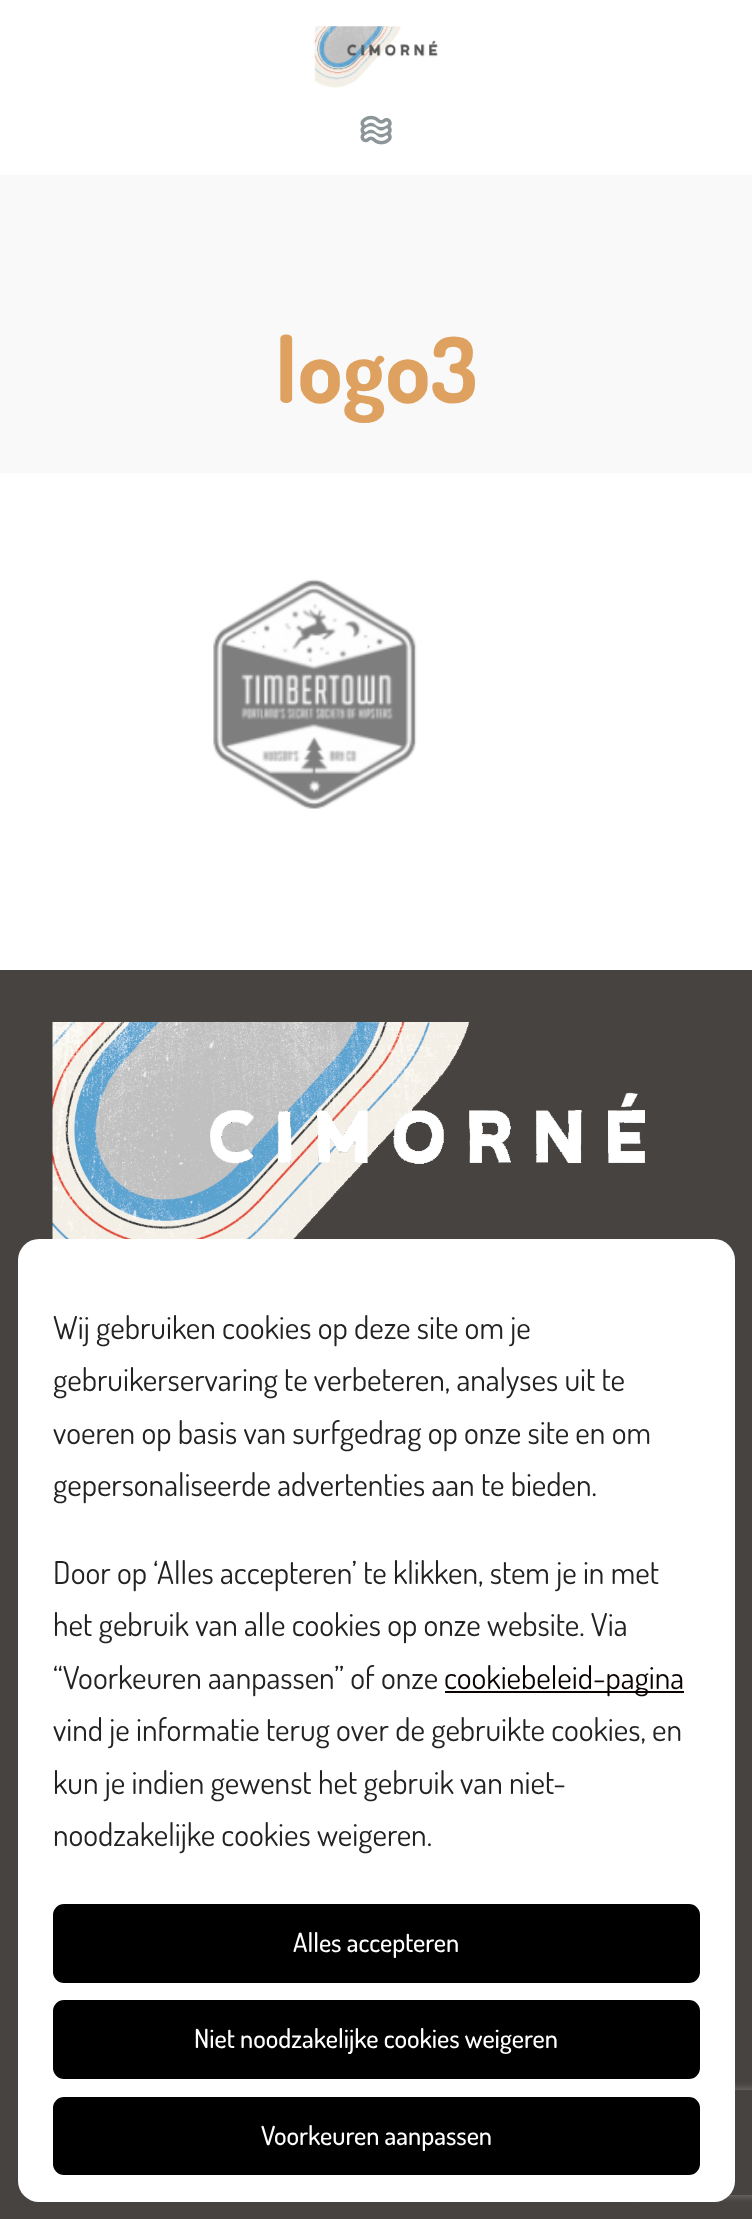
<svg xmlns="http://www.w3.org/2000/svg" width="752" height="2219">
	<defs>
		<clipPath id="clip1"><path d="M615 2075H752V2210H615ZM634 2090H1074C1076 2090 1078 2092 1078 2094V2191C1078 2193 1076 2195 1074 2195H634C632 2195 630 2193 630 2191V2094C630 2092 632 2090 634 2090Z" clip-rule="evenodd" /></clipPath>
	</defs>
	<rect width="100%" height="100%" fill="#FFFFFF" />
	<image x="314" y="26" width="124" height="62" href="assets/img1.png" />
	<image x="360" y="115" width="32" height="30" href="assets/img2.png" />
	<rect x="0" y="175" width="752" height="298" fill="#F9F9F9" />
	<text x="275" y="403" font-family="Dosis" font-size="91" font-weight="700" fill="#DEA15F">logo3</text>
	<image x="213" y="579" width="204" height="230" href="assets/img3.png" />
	<rect x="0" y="970" width="752" height="1249" fill="#474341" />
	<image x="52" y="1022" width="593" height="217" href="assets/img4.png" />
	<g clip-path="url(#clip1)">
		<rect x="630" y="2090" width="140" height="105" rx="4" fill="#808080" filter="blur(4.5px)" />
	</g>
	<rect x="18" y="1239" width="717" height="963" rx="21" fill="#FFFFFF" />
	<g font-family="Dosis" font-size="31.5" fill="#222222">
		<text x="53" y="1339">Wij gebruiken cookies op deze site om je</text>
		<text x="53" y="1391">gebruikerservaring te verbeteren, analyses uit te</text>
		<text x="53" y="1444">voeren op basis van surfgedrag op onze site en om</text>
		<text x="53" y="1496">gepersonaliseerde advertenties aan te bieden.</text>
		<text x="53" y="1584">Door op ‘Alles accepteren’ te klikken, stem je in met</text>
		<text x="53" y="1636">het gebruik van alle cookies op onze website. Via</text>
		<text x="53" y="1689">“Voorkeuren aanpassen” of onze</text>
	</g>
	<rect x="445" y="1691" width="239" height="2" fill="#0A0101" />
	<text x="444" y="1689" font-family="Dosis" font-size="31.5" fill="#0A0101">cookiebeleid-pagina</text>
	<g font-family="Dosis" font-size="31.5" fill="#222222">
		<text x="53" y="1741">vind je informatie terug over de gebruikte cookies, en</text>
		<text x="53" y="1794">kun je indien gewenst het gebruik van niet-</text>
		<text x="53" y="1846">noodzakelijke cookies weigeren.</text>
	</g>
	<rect x="54" y="1905" width="645" height="77" rx="10" fill="#000000" stroke="#000000" stroke-width="2" />
	<text x="293" y="1952" font-family="Dosis" font-size="26.25" font-weight="500" fill="#FFFFFF">Alles accepteren</text>
	<rect x="54" y="2001" width="645" height="77" rx="10" fill="#000000" stroke="#000000" stroke-width="2" />
	<text x="194" y="2048" font-family="Dosis" font-size="26.25" font-weight="500" fill="#FFFFFF">Niet noodzakelijke cookies weigeren</text>
	<rect x="54" y="2098" width="645" height="76" rx="10" fill="#000000" stroke="#000000" stroke-width="2" />
	<text x="261" y="2145" font-family="Dosis" font-size="26.25" font-weight="500" fill="#FFFFFF">Voorkeuren aanpassen</text>
</svg>
